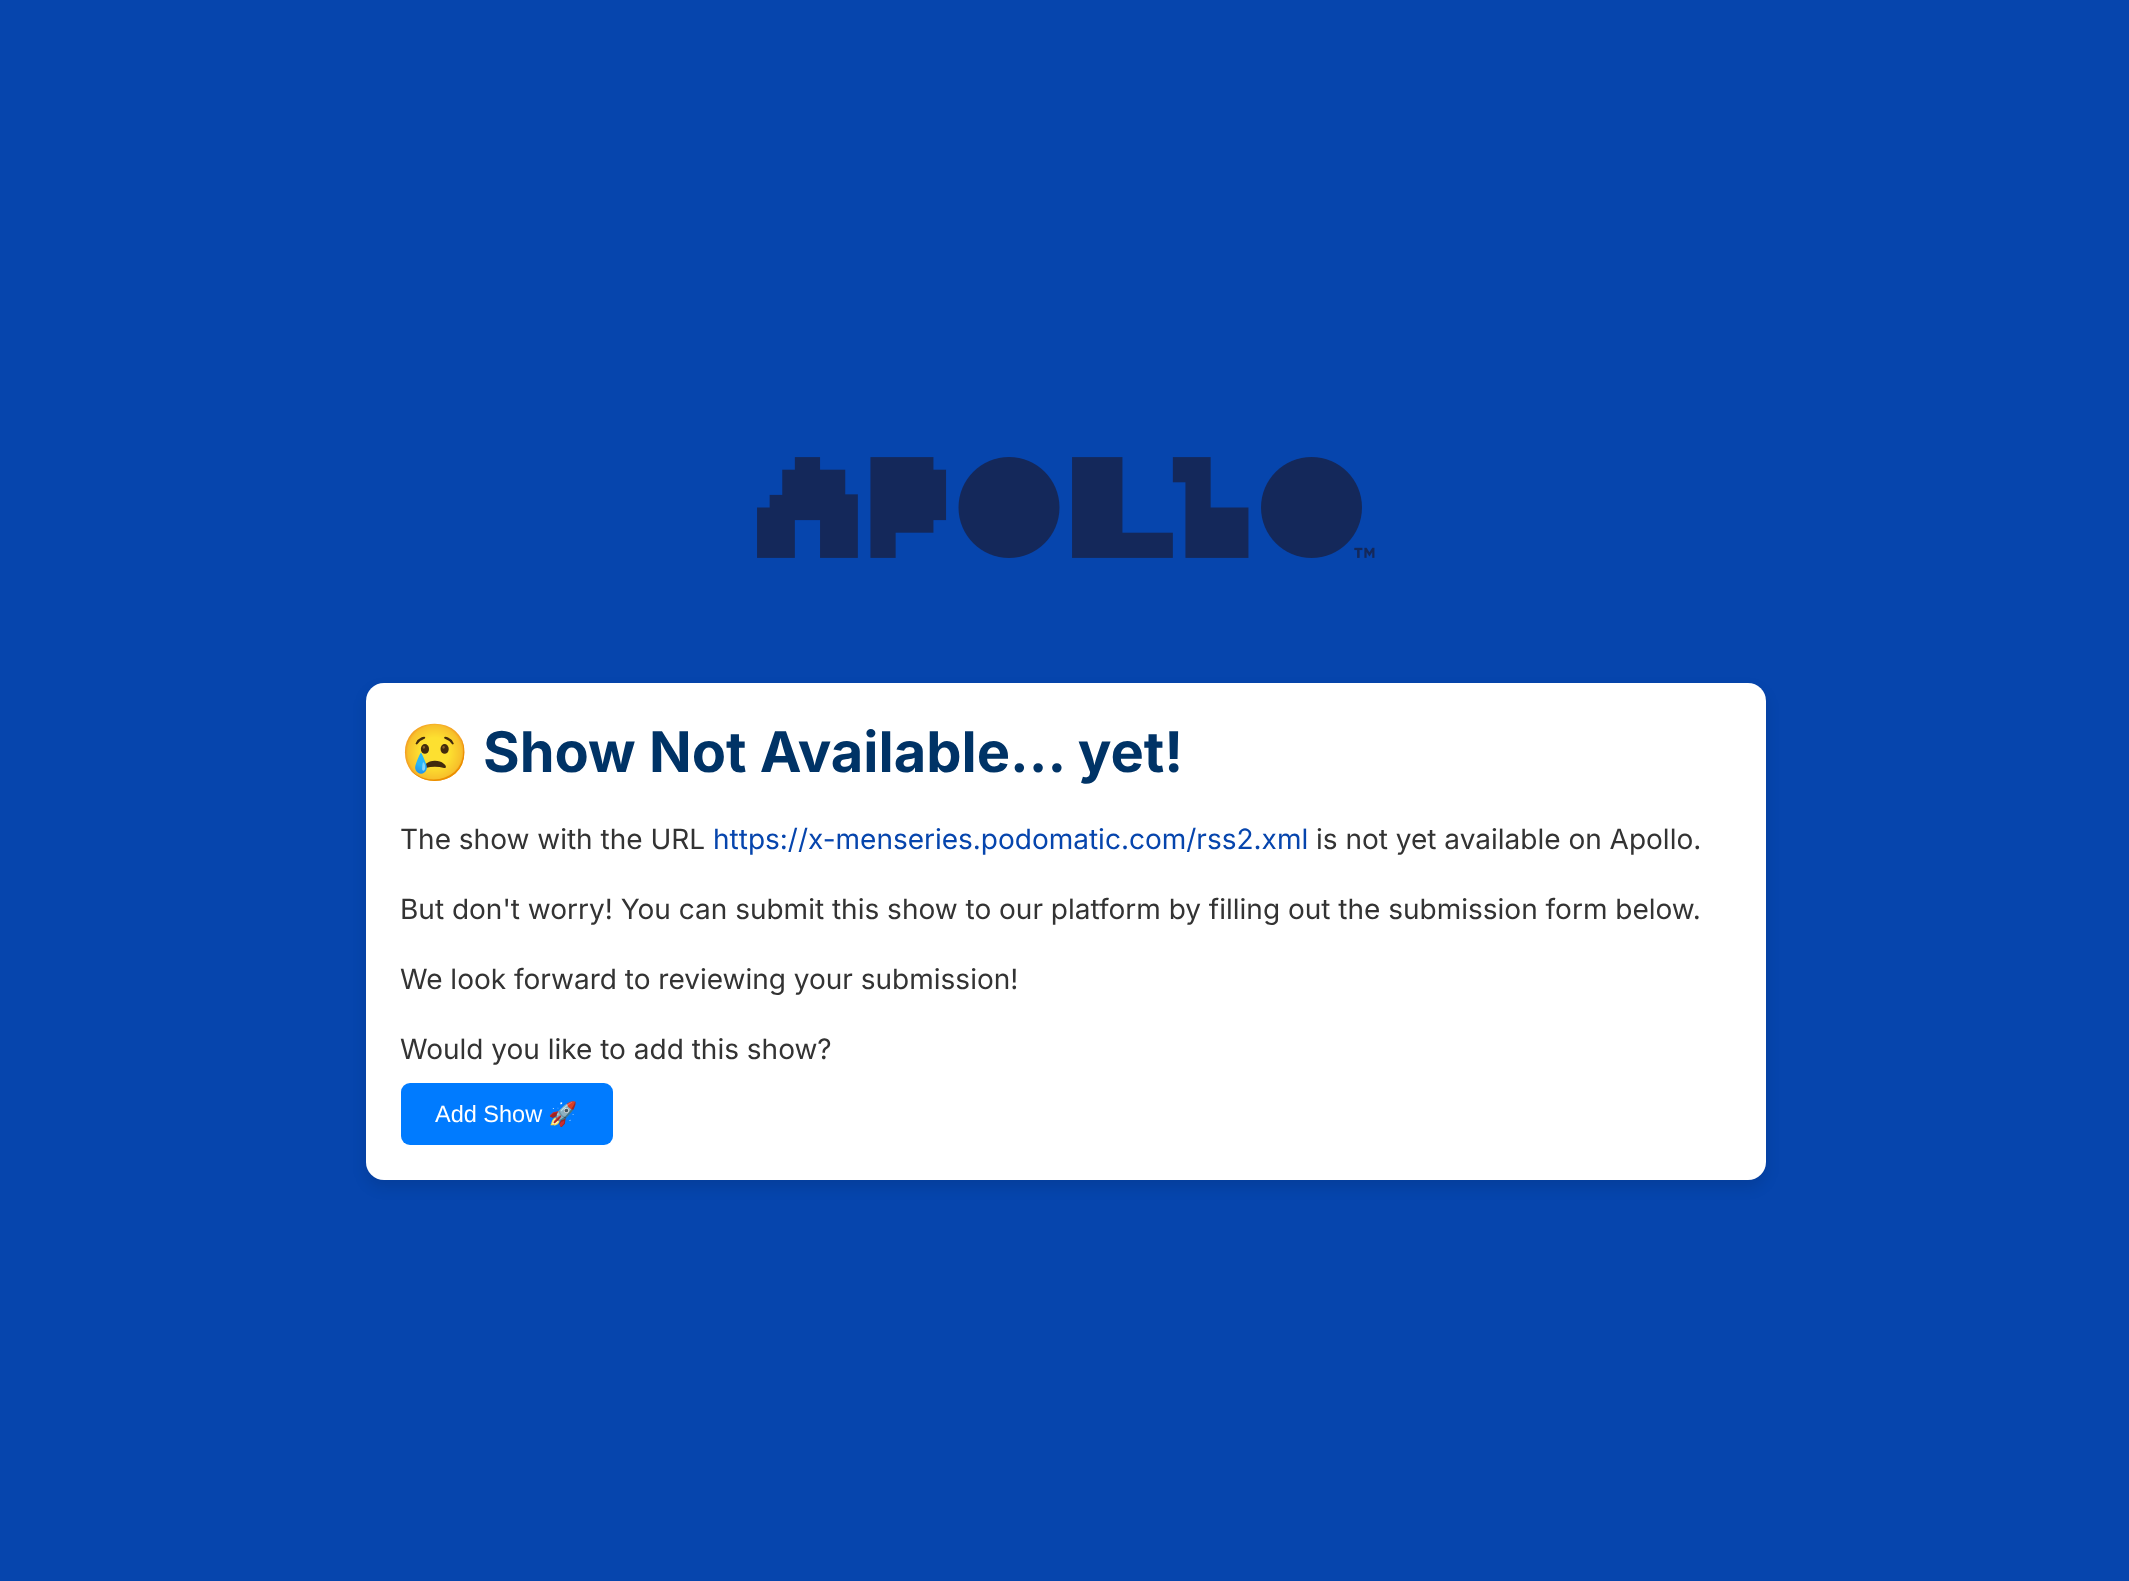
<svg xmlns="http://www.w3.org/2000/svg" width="2129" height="1581">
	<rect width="100%" height="100%" fill="#0645AD" />
	<image x="757" y="457" width="618" height="101" href="assets/img1.png" />
	<rect x="366" y="690" width="1400" height="497" rx="18" fill="#000000" fill-opacity="0.1" filter="blur(7px)" />
	<rect x="366" y="683" width="1400" height="497" rx="18" fill="#FFFFFF" />
	<text x="400" y="772" font-family="Noto Color Emoji" font-size="56" font-weight="700" fill="#003366">😢</text>
	<text x="483" y="772" font-family="Inter" font-size="56" font-weight="700" fill="#003366">Show Not Available... yet!</text>
	<text x="400" y="849" font-family="Inter" font-size="28" fill="#333333">The show with the URL</text>
	<text x="713" y="849" font-family="Inter" font-size="28" fill="#0645AD">https://x-menseries.podomatic.com/rss2.xml</text>
	<g font-family="Inter" font-size="28" fill="#333333">
		<text x="1316" y="849">is not yet available on Apollo.</text>
		<text x="400" y="919">But don't worry! You can submit this show to our platform by filling out the submission form below.</text>
		<text x="400" y="989">We look forward to reviewing your submission!</text>
		<text x="400" y="1059">Would you like to add this show?</text>
	</g>
	<rect x="401" y="1083" width="212" height="62" rx="9" fill="#007BFF" />
	<text x="435" y="1122" font-family="Liberation Sans" font-size="23.5" fill="#FFFFFF">Add Show</text>
	<text x="548" y="1122" font-family="Noto Color Emoji" font-size="23.5" fill="#FFFFFF">🚀</text>
</svg>
